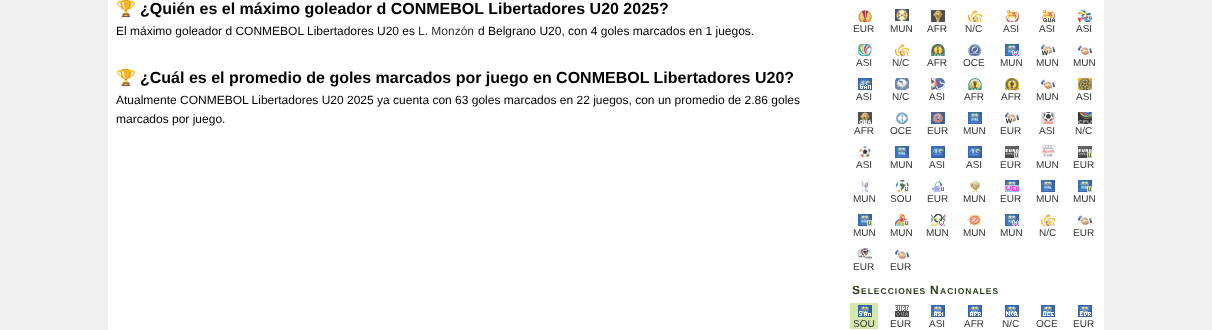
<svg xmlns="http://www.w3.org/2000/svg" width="1212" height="330">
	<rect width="100%" height="100%" fill="#EFEFEF" />
	<rect x="108" y="0" width="996" height="330" fill="#FFFFFF" />
	<text x="116" y="14" font-family="Noto Color Emoji" font-size="16" font-weight="700" fill="#000000">🏆</text>
	<text x="140" y="14" font-family="Liberation Sans" font-size="16" font-weight="700" fill="#000000">¿Quién es el máximo goleador d CONMEBOL Libertadores U20 2025?</text>
	<text x="116" y="35" font-family="Liberation Sans" font-size="12" fill="#000000">El máximo goleador d CONMEBOL Libertadores U20 es</text>
	<text x="418" y="35" font-family="Liberation Sans" font-size="12" fill="#333333">L. Monzón</text>
	<text x="478" y="35" font-family="Liberation Sans" font-size="12" fill="#000000">d Belgrano U20, con 4 goles marcados en 1 juegos.</text>
	<text x="116" y="83" font-family="Noto Color Emoji" font-size="16" font-weight="700" fill="#000000">🏆</text>
	<text x="140" y="83" font-family="Liberation Sans" font-size="16" font-weight="700" fill="#000000">¿Cuál es el promedio de goles marcados por juego en CONMEBOL Libertadores U20?</text>
	<g font-family="Liberation Sans" font-size="12" fill="#000000">
		<text x="116" y="104">Atualmente CONMEBOL Libertadores U20 2025 ya cuenta con 63 goles marcados en 22 juegos, con un promedio de 2.86 goles</text>
		<text x="116" y="123">marcados por juego.</text>
	</g>
	<image x="858" y="10" width="14" height="12" href="assets/img1.png" />
	<text x="853" y="32" font-family="Liberation Sans" font-size="10" fill="#333333">EUR</text>
	<image x="895" y="9" width="14" height="12" href="assets/img2.png" />
	<text x="890" y="32" font-family="Liberation Sans" font-size="10" fill="#333333">MUN</text>
	<image x="931" y="10" width="14" height="12" href="assets/img3.png" />
	<text x="927" y="32" font-family="Liberation Sans" font-size="10" fill="#333333">AFR</text>
	<image x="968" y="10" width="14" height="12" href="assets/img4.png" />
	<text x="965" y="32" font-family="Liberation Sans" font-size="10" fill="#333333">N/C</text>
	<image x="1006" y="10" width="13" height="12" href="assets/img5.png" />
	<text x="1003" y="32" font-family="Liberation Sans" font-size="10" fill="#333333">ASI</text>
	<image x="1042" y="10" width="13" height="12" href="assets/img6.png" />
	<text x="1039" y="32" font-family="Liberation Sans" font-size="10" fill="#333333">ASI</text>
	<image x="1078" y="10" width="15" height="12" href="assets/img7.png" />
	<text x="1076" y="32" font-family="Liberation Sans" font-size="10" fill="#333333">ASI</text>
	<image x="858" y="44" width="14" height="12" href="assets/img8.png" />
	<text x="856" y="66" font-family="Liberation Sans" font-size="10" fill="#333333">ASI</text>
	<image x="895" y="44" width="14" height="12" href="assets/img4.png" />
	<text x="892" y="66" font-family="Liberation Sans" font-size="10" fill="#333333">N/C</text>
	<image x="931" y="44" width="14" height="12" href="assets/img9.png" />
	<text x="927" y="66" font-family="Liberation Sans" font-size="10" fill="#333333">AFR</text>
	<image x="968" y="44" width="14" height="12" href="assets/img10.png" />
	<text x="963" y="66" font-family="Liberation Sans" font-size="10" fill="#333333">OCE</text>
	<image x="1005" y="44" width="14" height="12" href="assets/img11.png" />
	<text x="1000" y="66" font-family="Liberation Sans" font-size="10" fill="#333333">MUN</text>
	<image x="1041" y="44" width="14" height="12" href="assets/img12.png" />
	<text x="1036" y="66" font-family="Liberation Sans" font-size="10" fill="#333333">MUN</text>
	<image x="1078" y="44" width="14" height="12" href="assets/img13.png" />
	<text x="1073" y="66" font-family="Liberation Sans" font-size="10" fill="#333333">MUN</text>
	<image x="858" y="78" width="14" height="12" href="assets/img14.png" />
	<text x="856" y="100" font-family="Liberation Sans" font-size="10" fill="#333333">ASI</text>
	<image x="895" y="78" width="14" height="12" href="assets/img15.png" />
	<text x="892" y="100" font-family="Liberation Sans" font-size="10" fill="#333333">N/C</text>
	<image x="931" y="78" width="14" height="12" href="assets/img16.png" />
	<text x="929" y="100" font-family="Liberation Sans" font-size="10" fill="#333333">ASI</text>
	<image x="968" y="78" width="14" height="12" href="assets/img17.png" />
	<text x="964" y="100" font-family="Liberation Sans" font-size="10" fill="#333333">AFR</text>
	<image x="1005" y="78" width="14" height="12" href="assets/img18.png" />
	<text x="1001" y="100" font-family="Liberation Sans" font-size="10" fill="#333333">AFR</text>
	<image x="1041" y="78" width="14" height="12" href="assets/img13.png" />
	<text x="1036" y="100" font-family="Liberation Sans" font-size="10" fill="#333333">MUN</text>
	<image x="1078" y="78" width="14" height="12" href="assets/img19.png" />
	<text x="1076" y="100" font-family="Liberation Sans" font-size="10" fill="#333333">ASI</text>
	<image x="858" y="112" width="14" height="12" href="assets/img20.png" />
	<text x="854" y="134" font-family="Liberation Sans" font-size="10" fill="#333333">AFR</text>
	<image x="896" y="112" width="12" height="12" href="assets/img21.png" />
	<text x="890" y="134" font-family="Liberation Sans" font-size="10" fill="#333333">OCE</text>
	<image x="931" y="112" width="14" height="12" href="assets/img22.png" />
	<text x="927" y="134" font-family="Liberation Sans" font-size="10" fill="#333333">EUR</text>
	<image x="968" y="112" width="14" height="12" href="assets/img23.png" />
	<text x="963" y="134" font-family="Liberation Sans" font-size="10" fill="#333333">MUN</text>
	<image x="1005" y="112" width="14" height="12" href="assets/img12.png" />
	<text x="1000" y="134" font-family="Liberation Sans" font-size="10" fill="#333333">EUR</text>
	<image x="1041" y="112" width="14" height="12" href="assets/img24.png" />
	<text x="1039" y="134" font-family="Liberation Sans" font-size="10" fill="#333333">ASI</text>
	<image x="1078" y="112" width="14" height="12" href="assets/img25.png" />
	<text x="1075" y="134" font-family="Liberation Sans" font-size="10" fill="#333333">N/C</text>
	<image x="859" y="146" width="12" height="12" href="assets/img26.png" />
	<text x="856" y="168" font-family="Liberation Sans" font-size="10" fill="#333333">ASI</text>
	<image x="895" y="146" width="14" height="12" href="assets/img23.png" />
	<text x="890" y="168" font-family="Liberation Sans" font-size="10" fill="#333333">MUN</text>
	<image x="931" y="146" width="14" height="12" href="assets/img27.png" />
	<text x="929" y="168" font-family="Liberation Sans" font-size="10" fill="#333333">ASI</text>
	<image x="968" y="146" width="14" height="12" href="assets/img27.png" />
	<text x="966" y="168" font-family="Liberation Sans" font-size="10" fill="#333333">ASI</text>
	<image x="1005" y="146" width="14" height="12" href="assets/img28.png" />
	<text x="1000" y="168" font-family="Liberation Sans" font-size="10" fill="#333333">EUR</text>
	<image x="1042" y="145" width="13" height="12" href="assets/img29.png" />
	<text x="1036" y="168" font-family="Liberation Sans" font-size="10" fill="#333333">MUN</text>
	<image x="1078" y="146" width="14" height="12" href="assets/img28.png" />
	<text x="1073" y="168" font-family="Liberation Sans" font-size="10" fill="#333333">EUR</text>
	<image x="859" y="180" width="12" height="12" href="assets/img30.png" />
	<text x="853" y="202" font-family="Liberation Sans" font-size="10" fill="#333333">MUN</text>
	<image x="895" y="180" width="14" height="12" href="assets/img31.png" />
	<text x="890" y="202" font-family="Liberation Sans" font-size="10" fill="#333333">SOU</text>
	<image x="932" y="181" width="12" height="11" href="assets/img32.png" />
	<text x="927" y="202" font-family="Liberation Sans" font-size="10" fill="#333333">EUR</text>
	<image x="970" y="180" width="10" height="12" href="assets/img33.png" />
	<text x="963" y="202" font-family="Liberation Sans" font-size="10" fill="#333333">MUN</text>
	<image x="1005" y="180" width="14" height="12" href="assets/img34.png" />
	<text x="1000" y="202" font-family="Liberation Sans" font-size="10" fill="#333333">EUR</text>
	<image x="1041" y="180" width="14" height="12" href="assets/img23.png" />
	<text x="1036" y="202" font-family="Liberation Sans" font-size="10" fill="#333333">MUN</text>
	<image x="1078" y="180" width="14" height="12" href="assets/img35.png" />
	<text x="1073" y="202" font-family="Liberation Sans" font-size="10" fill="#333333">MUN</text>
	<image x="858" y="214" width="14" height="12" href="assets/img35.png" />
	<text x="853" y="236" font-family="Liberation Sans" font-size="10" fill="#333333">MUN</text>
	<image x="895" y="214" width="14" height="12" href="assets/img36.png" />
	<text x="890" y="236" font-family="Liberation Sans" font-size="10" fill="#333333">MUN</text>
	<image x="931" y="214" width="14" height="12" href="assets/img37.png" />
	<text x="926" y="236" font-family="Liberation Sans" font-size="10" fill="#333333">MUN</text>
	<image x="968" y="214" width="14" height="12" href="assets/img38.png" />
	<text x="963" y="236" font-family="Liberation Sans" font-size="10" fill="#333333">MUN</text>
	<image x="1005" y="214" width="14" height="12" href="assets/img11.png" />
	<text x="1000" y="236" font-family="Liberation Sans" font-size="10" fill="#333333">MUN</text>
	<image x="1041" y="214" width="14" height="12" href="assets/img4.png" />
	<text x="1039" y="236" font-family="Liberation Sans" font-size="10" fill="#333333">N/C</text>
	<image x="1078" y="214" width="14" height="12" href="assets/img13.png" />
	<text x="1073" y="236" font-family="Liberation Sans" font-size="10" fill="#333333">EUR</text>
	<image x="858" y="248" width="14" height="12" href="assets/img39.png" />
	<text x="853" y="270" font-family="Liberation Sans" font-size="10" fill="#333333">EUR</text>
	<image x="895" y="248" width="14" height="12" href="assets/img13.png" />
	<text x="890" y="270" font-family="Liberation Sans" font-size="10" fill="#333333">EUR</text>
	<text x="852" y="294" font-family="Liberation Sans" font-size="12" font-weight="700" letter-spacing="1" fill="#2B401C">S</text>
	<text x="861" y="294" font-family="Liberation Sans" font-size="8.5" font-weight="700" letter-spacing="1" fill="#2B401C">ELECCIONES</text>
	<text x="930" y="294" font-family="Liberation Sans" font-size="12" font-weight="700" letter-spacing="1" fill="#2B401C">N</text>
	<text x="940" y="294" font-family="Liberation Sans" font-size="8.5" font-weight="700" letter-spacing="1" fill="#2B401C">ACIONALES</text>
	<rect x="850" y="303" width="28" height="26" fill="#D4E8A9" />
	<image x="858" y="305" width="14" height="12" href="assets/img40.png" />
	<text x="853" y="327" font-family="Liberation Sans" font-size="10" fill="#333333">SOU</text>
	<image x="895" y="305" width="14" height="12" href="assets/img41.png" />
	<text x="890" y="327" font-family="Liberation Sans" font-size="10" fill="#333333">EUR</text>
	<image x="931" y="305" width="14" height="12" href="assets/img42.png" />
	<text x="929" y="327" font-family="Liberation Sans" font-size="10" fill="#333333">ASI</text>
	<image x="968" y="305" width="14" height="12" href="assets/img43.png" />
	<text x="964" y="327" font-family="Liberation Sans" font-size="10" fill="#333333">AFR</text>
	<image x="1005" y="305" width="14" height="12" href="assets/img44.png" />
	<text x="1002" y="327" font-family="Liberation Sans" font-size="10" fill="#333333">N/C</text>
	<image x="1041" y="305" width="14" height="12" href="assets/img45.png" />
	<text x="1036" y="327" font-family="Liberation Sans" font-size="10" fill="#333333">OCE</text>
	<image x="1078" y="305" width="14" height="12" href="assets/img46.png" />
	<text x="1073" y="327" font-family="Liberation Sans" font-size="10" fill="#333333">EUR</text>
</svg>
